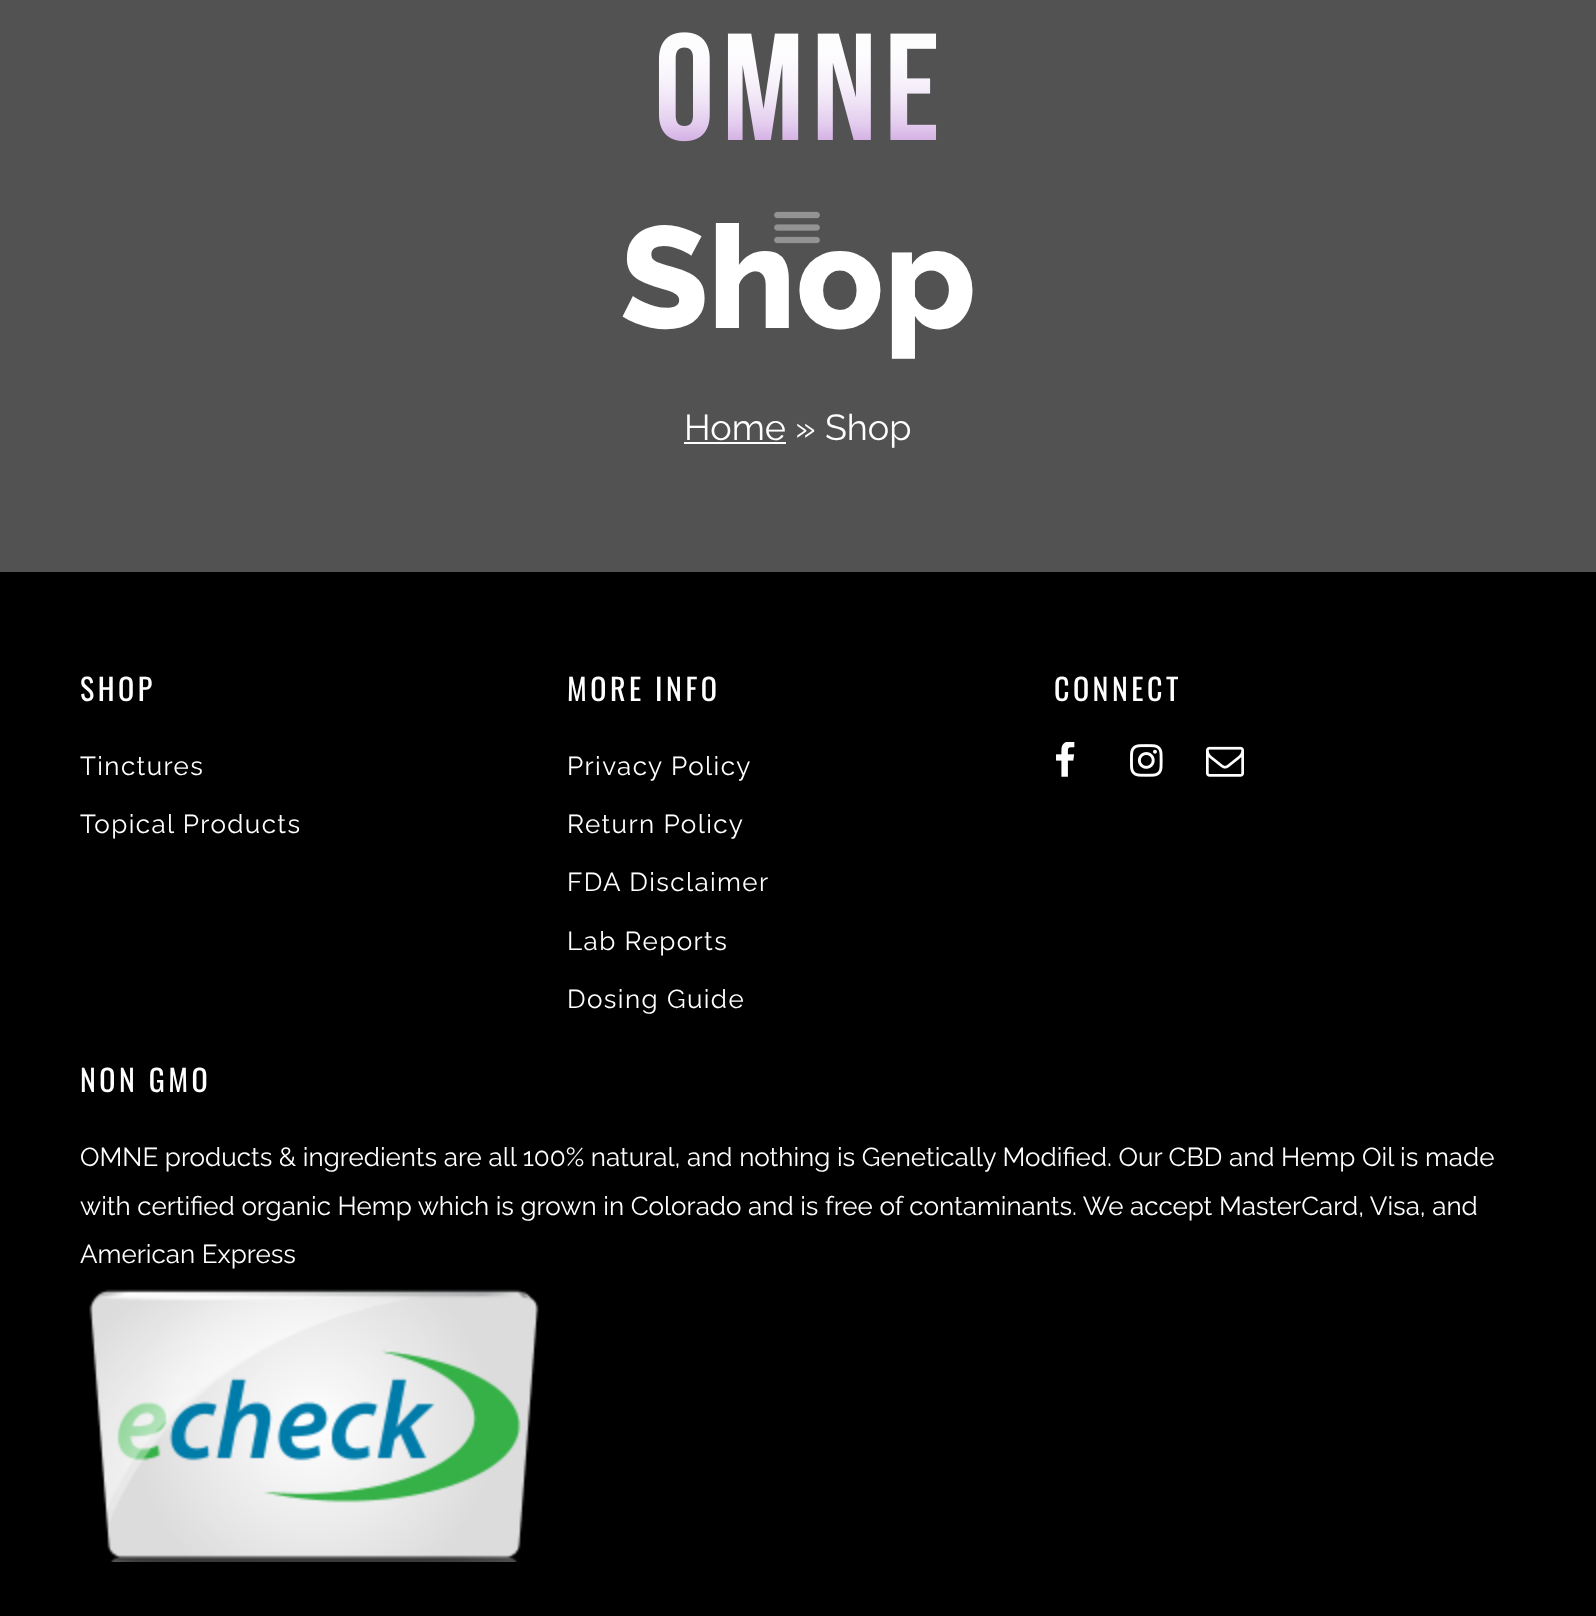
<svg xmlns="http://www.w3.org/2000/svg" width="1596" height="1616">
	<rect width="100%" height="100%" fill="#525252" />
	<image x="658" y="32" width="279" height="110" href="assets/img1.png" />
	<text x="620" y="328" font-family="Raleway" font-size="144" font-weight="800" fill="#FFFFFF">Shop</text>
	<image x="774" y="211" width="46" height="33" href="assets/img2.png" />
	<rect x="684" y="442" width="102" height="2" fill="#FFFFFF" />
	<text x="684" y="440" font-family="Raleway" font-size="36" fill="#FFFFFF">Home » Shop</text>
	<rect x="0" y="572" width="1596" height="1044" fill="#000000" />
	<text x="80" y="701" font-family="Oswald" font-size="30" letter-spacing="3.5" fill="#FFFFFF">SHOP</text>
	<g font-family="Raleway" font-size="26" letter-spacing="1.4" fill="#FFFFFF">
		<text x="80" y="775">Tinctures</text>
		<text x="80" y="833">Topical Products</text>
	</g>
	<text x="567" y="701" font-family="Oswald" font-size="30" letter-spacing="3.5" fill="#FFFFFF">MORE INFO</text>
	<g font-family="Raleway" font-size="26" letter-spacing="1.4" fill="#FFFFFF">
		<text x="567" y="775">Privacy Policy</text>
		<text x="567" y="833">Return Policy</text>
		<text x="567" y="891">FDA Disclaimer</text>
		<text x="567" y="950">Lab Reports</text>
		<text x="567" y="1008">Dosing Guide</text>
	</g>
	<text x="1054" y="701" font-family="Oswald" font-size="30" letter-spacing="3.5" fill="#FFFFFF">CONNECT</text>
	<image x="1056" y="742" width="19" height="35" href="assets/img3.png" />
	<image x="1130" y="744" width="33" height="33" href="assets/img4.png" />
	<image x="1206" y="746" width="38" height="31" href="assets/img5.png" />
	<text x="80" y="1092" font-family="Oswald" font-size="30" letter-spacing="3.5" fill="#FFFFFF">NON GMO</text>
	<g font-family="Raleway" font-size="26" fill="#FFFFFF">
		<text x="80" y="1166">OMNE products &amp; ingredients are all 100% natural, and nothing is Genetically Modified. Our CBD and Hemp Oil is made</text>
		<text x="80" y="1215">with certified organic Hemp which is grown in Colorado and is free of contaminants. We accept MasterCard, Visa, and</text>
		<text x="80" y="1263">American Express</text>
	</g>
	<image x="89" y="1289" width="450" height="273" href="assets/img6.png" />
</svg>
